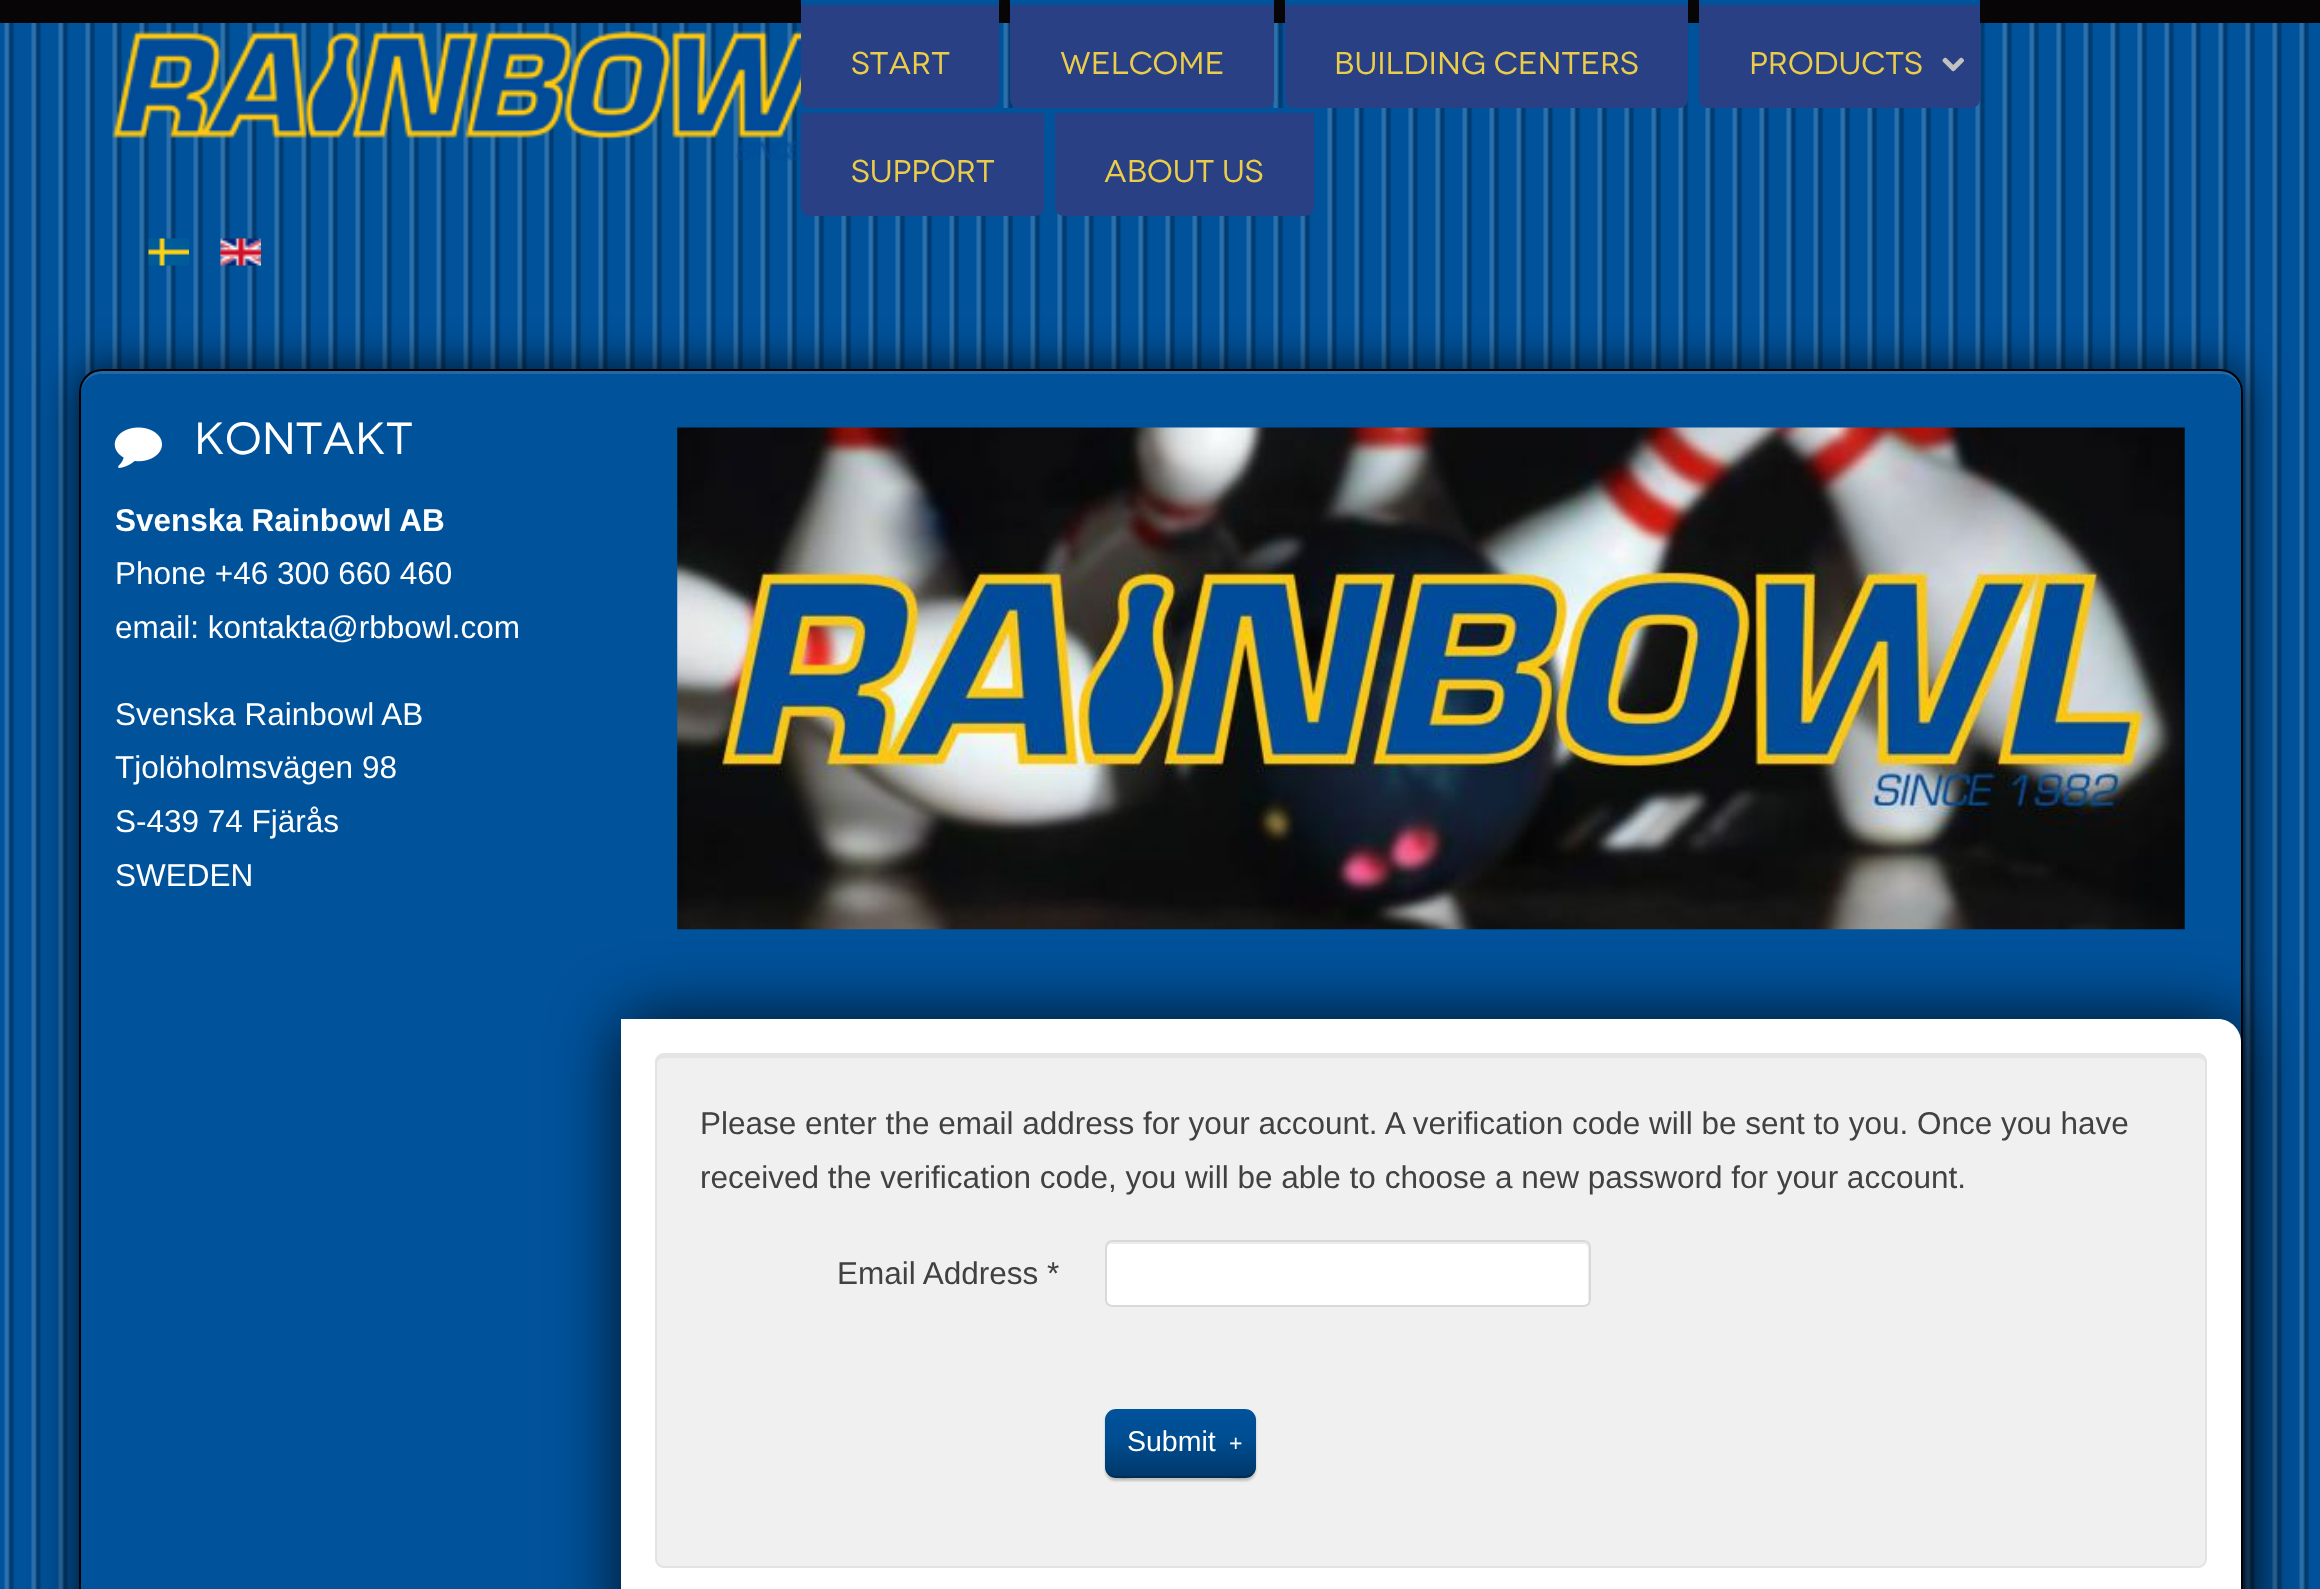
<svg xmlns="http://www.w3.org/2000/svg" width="2320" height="1589">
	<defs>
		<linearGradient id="g1" gradientUnits="userSpaceOnUse" x1="1180" y1="1409" x2="1180" y2="1478"><stop offset="0" stop-color="#00529B" /><stop offset="0.45" stop-color="#004D91" /><stop offset="1" stop-color="#003768" /></linearGradient>
	</defs>
	<rect width="100%" height="100%" fill="#FFFFFF" />
	<image x="0" y="23" width="2320" height="1566" href="assets/img1.png" />
	<rect x="0" y="0" width="2320" height="23" fill="#070506" />
	<image x="112" y="31" width="698" height="130" href="assets/img2.png" />
	<image x="148" y="238" width="41" height="28" href="assets/img3.png" />
	<image x="220" y="238" width="41" height="28" href="assets/img4.png" />
	<path d="M801 0H999V99C999 104 995 108 990 108H810C805 108 801 104 801 99Z" fill="#294084" />
	<rect x="801" y="0" width="198" height="5" fill="#00529B" />
	<text x="851" y="74" font-family="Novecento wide" font-size="31.5" fill="#EBCD49">START</text>
	<path d="M1010 0H1274V99C1274 104 1270 108 1265 108H1019C1014 108 1010 104 1010 99Z" fill="#294084" />
	<rect x="1010" y="0" width="264" height="5" fill="#00529B" />
	<text x="1060" y="74" font-family="Novecento wide" font-size="31.5" fill="#EBCD49">WELCOME</text>
	<path d="M1285 0H1688V99C1688 104 1684 108 1679 108H1294C1289 108 1285 104 1285 99Z" fill="#294084" />
	<rect x="1285" y="0" width="403" height="5" fill="#00529B" />
	<text x="1334" y="74" font-family="Novecento wide" font-size="31.5" fill="#EBCD49">BUILDING CENTERS</text>
	<path d="M1699 0H1980V99C1980 104 1976 108 1971 108H1708C1703 108 1699 104 1699 99Z" fill="#294084" />
	<rect x="1699" y="0" width="281" height="5" fill="#00529B" />
	<text x="1749" y="74" font-family="Novecento wide" font-size="31.5" fill="#EBCD49">PRODUCTS</text>
	<image x="1942" y="57" width="22" height="15" href="assets/img5.png" />
	<path d="M801 108H1044V207C1044 212 1040 216 1035 216H810C805 216 801 212 801 207Z" fill="#294084" />
	<rect x="801" y="108" width="243" height="5" fill="#00529B" />
	<text x="851" y="182" font-family="Novecento wide" font-size="31.5" fill="#EBCD49">SUPPORT</text>
	<path d="M1055 108H1314V207C1314 212 1310 216 1305 216H1064C1059 216 1055 212 1055 207Z" fill="#294084" />
	<rect x="1055" y="108" width="259" height="5" fill="#00529B" />
	<text x="1104" y="182" font-family="Novecento wide" font-size="31.5" fill="#EBCD49">ABOUT US</text>
	<rect x="79" y="369" width="2164" height="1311" rx="23" fill="#000000" fill-opacity="0.8" filter="blur(22.5px)" />
	<rect x="79" y="369" width="2164" height="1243" rx="23" fill="#00529B" />
	<path d="M101 374H2221C2232 374 2241 383 2241 394V391C2241 380 2232 371 2221 371H101C90 371 81 380 81 391V394C81 383 90 374 101 374Z" fill="#2267A6" />
	<rect x="80" y="370" width="2162" height="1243" rx="22" fill="none" stroke="#000000" stroke-width="2" />
	<text x="194" y="454" font-family="Novecento wide" font-size="45" fill="#FFFFFF">Kontakt</text>
	<text x="115" y="531" font-family="Liberation Sans" font-size="31.5" font-weight="700" fill="#FFFFFF">Svenska Rainbowl AB</text>
	<g font-family="Liberation Sans" font-size="31.5" fill="#FFFFFF">
		<text x="115" y="584">Phone +46 300 660 460</text>
		<text x="115" y="638">email: kontakta@rbbowl.com</text>
		<text x="115" y="725">Svenska Rainbowl AB</text>
		<text x="115" y="778">Tjolöholmsvägen 98</text>
		<text x="115" y="832">S-439 74 Fjärås</text>
		<text x="115" y="886">SWEDEN</text>
	</g>
	<image x="114" y="427" width="48" height="41" href="assets/img6.png" />
	<image x="677" y="427" width="1508" height="503" href="assets/img7.png" />
	<rect x="621" y="1019" width="1620" height="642" rx="23" fill="#000000" fill-opacity="0.8" filter="blur(34px)" />
	<path d="M621 1019H2218C2230.5 1019 2241 1029.5 2241 1042V1589C2241 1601.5 2230.5 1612 2218 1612H621Z" fill="#FFFFFF" />
	<rect x="655" y="1053" width="1552" height="515" rx="9" fill="#F0F0F0" />
	<path d="M664 1058H2198C2202 1058 2205 1061 2205 1064C2205 1060 2203 1055 2198 1055H664C659 1055 657 1060 657 1064C657 1061 660 1058 664 1058Z" fill="#E4E4E4" />
	<rect x="656" y="1054" width="1550" height="513" rx="8" fill="none" stroke="#E3E3E3" stroke-width="2" />
	<g font-family="Liberation Sans" font-size="31.5" fill="#414141">
		<text x="700" y="1134">Please enter the email address for your account. A verification code will be sent to you. Once you have</text>
		<text x="700" y="1188">received the verification code, you will be able to choose a new password for your account.</text>
		<text x="837" y="1284">Email Address *</text>
	</g>
	<rect x="1105" y="1240" width="486" height="67" rx="7" fill="#FFFFFF" />
	<path d="M1112 1244H1584C1586 1244 1588 1246 1588 1249V1303C1589 1302 1589 1301 1589 1300V1247C1589 1244 1587 1242 1584 1242H1112C1109 1242 1107 1244 1107 1247V1249C1107 1246 1109 1244 1112 1244Z" fill="#ECECEC" />
	<rect x="1106" y="1241" width="484" height="65" rx="6" fill="none" stroke="#D9D9D9" stroke-width="2" />
	<rect x="1105" y="1411" width="151" height="70" rx="11" fill="#000000" fill-opacity="0.2" filter="blur(1px)" />
	<rect x="1105" y="1409" width="151" height="69" rx="11" fill="url(#g1)" />
	<path d="M1105 1465C1105 1483 1125 1478 1138 1478H1224C1236 1478 1256 1483 1256 1465C1256 1471 1250 1476 1244 1476H1116C1110 1476 1105 1471 1105 1465Z" fill="#000000" fill-opacity="0.18" />
	<text x="1127" y="1451" font-family="Liberation Sans" font-size="28.5" fill="#FFFFFF">Submit</text>
	<text x="1229" y="1451" font-family="Liberation Sans" font-size="23" fill="#FFFFFF">+</text>
</svg>
